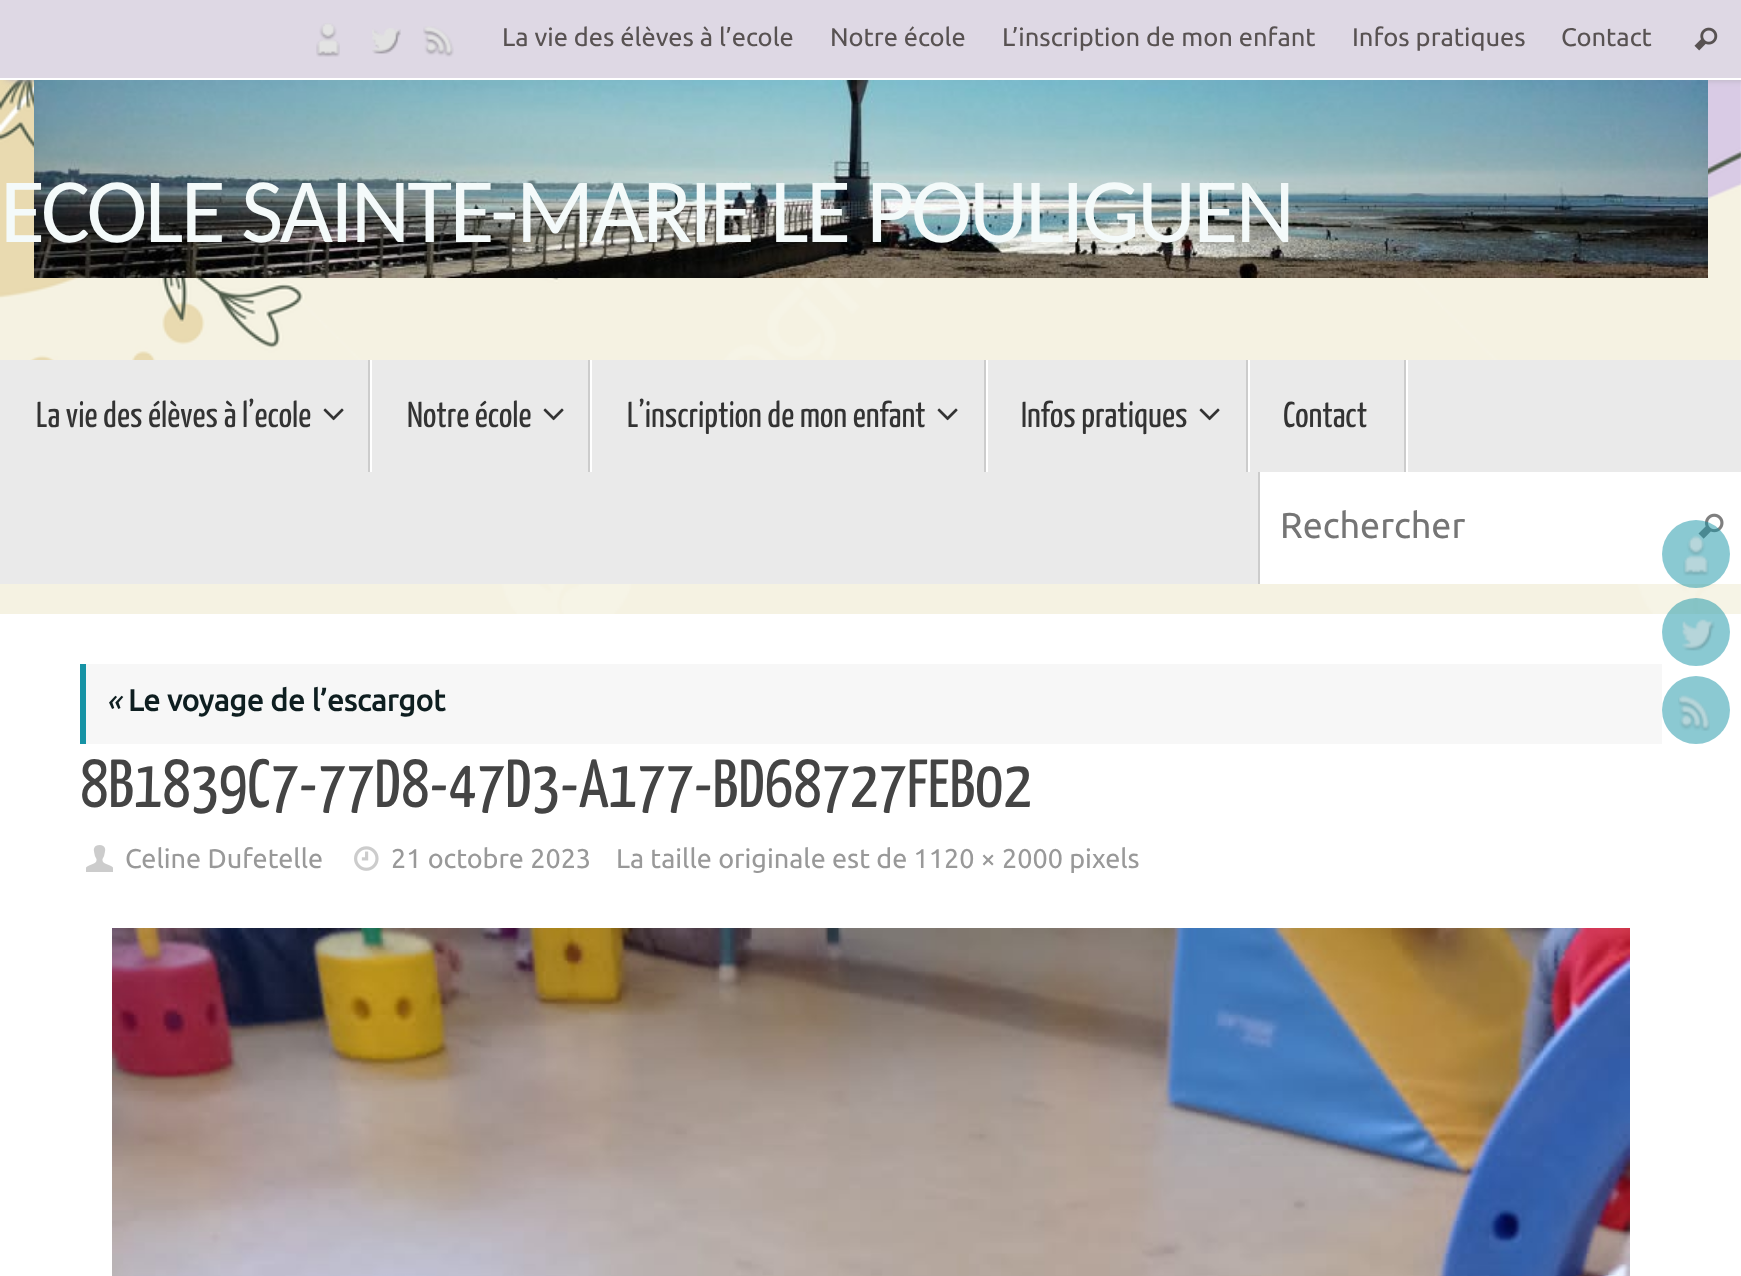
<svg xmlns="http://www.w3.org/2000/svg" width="1741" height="1276">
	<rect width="100%" height="100%" fill="#FFFFFF" />
	<image x="0" y="80" width="1741" height="534" href="assets/img1.png" />
	<rect x="6" y="0" width="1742" height="80" fill="#B6B0BC" filter="blur(3px)" />
	<rect x="0" y="0" width="1741" height="78" fill="#DED8E4" />
	<rect x="0" y="78" width="1741" height="2" fill="#FFFFFF" />
	<image x="316" y="23" width="24" height="34" href="assets/img2.png" />
	<image x="372" y="28" width="29" height="26" href="assets/img3.png" />
	<image x="423" y="26" width="31" height="31" href="assets/img4.png" />
	<g font-family="Ubuntu" font-size="25.5" fill="#585252">
		<text x="502" y="46">La vie des élèves à l’ecole</text>
		<text x="830" y="46">Notre école</text>
		<text x="1002" y="46">L’inscription de mon enfant</text>
		<text x="1352" y="46">Infos pratiques</text>
		<text x="1561" y="46">Contact</text>
	</g>
	<image x="1694" y="27" width="24" height="24" href="assets/img5.png" />
	<image x="34" y="80" width="1674" height="198" href="assets/img6.png" />
	<text x="0" y="242" font-family="Carlito" font-size="92" letter-spacing="-2.75" fill="#F4FAFA">ECOLE SAINTE-MARIE LE POULIGUEN</text>
	<rect x="0" y="360" width="1741" height="224" fill="#EAEAEA" />
	<rect x="370" y="360" width="2" height="112" fill="#FFFFFF" />
	<rect x="368" y="360" width="2" height="112" fill="#CCCCCC" />
	<text x="36" y="427" font-family="Yanone Kaffeesatz" font-size="36" fill="#333333">La vie des élèves à l’ecole</text>
	<image x="323" y="408" width="21" height="13" href="assets/img7.png" />
	<rect x="590" y="360" width="2" height="112" fill="#FFFFFF" />
	<rect x="588" y="360" width="2" height="112" fill="#CCCCCC" />
	<text x="407" y="427" font-family="Yanone Kaffeesatz" font-size="36" fill="#333333">Notre école</text>
	<image x="543" y="408" width="21" height="13" href="assets/img7.png" />
	<rect x="986" y="360" width="2" height="112" fill="#FFFFFF" />
	<rect x="984" y="360" width="2" height="112" fill="#CCCCCC" />
	<text x="627" y="427" font-family="Yanone Kaffeesatz" font-size="36" fill="#333333">L’inscription de mon enfant</text>
	<image x="937" y="408" width="21" height="13" href="assets/img7.png" />
	<rect x="1248" y="360" width="2" height="112" fill="#FFFFFF" />
	<rect x="1246" y="360" width="2" height="112" fill="#CCCCCC" />
	<text x="1021" y="427" font-family="Yanone Kaffeesatz" font-size="36" fill="#333333">Infos pratiques</text>
	<image x="1199" y="408" width="21" height="13" href="assets/img7.png" />
	<rect x="1406" y="360" width="2" height="112" fill="#FFFFFF" />
	<rect x="1404" y="360" width="2" height="112" fill="#CCCCCC" />
	<text x="1283" y="427" font-family="Yanone Kaffeesatz" font-size="36" fill="#333333">Contact</text>
	<rect x="1260" y="472" width="481" height="112" fill="#FFFFFF" />
	<rect x="1258" y="472" width="2" height="112" fill="#CCCCCC" />
	<text x="1280" y="538" font-family="Ubuntu" font-size="36" fill="#757575">Rechercher</text>
	<image x="1698" y="513" width="26" height="26" href="assets/img8.png" />
	<circle cx="1696" cy="554" r="34" fill="#1693A5" fill-opacity="0.5" />
	<image x="1683" y="535" width="26" height="41" href="assets/img9.png" />
	<circle cx="1696" cy="632" r="34" fill="#1693A5" fill-opacity="0.5" />
	<image x="1682" y="619" width="33" height="32" href="assets/img10.png" />
	<circle cx="1696" cy="710" r="34" fill="#8BC9D2" />
	<image x="1678" y="695" width="32" height="36" href="assets/img11.png" />
	<rect x="86" y="664" width="1576" height="80" fill="#F7F7F7" />
	<rect x="80" y="664" width="6" height="80" fill="#1693A5" />
	<text x="106" y="711" font-family="Ubuntu" font-size="30" font-style="italic" fill="#0E1E20">«</text>
	<text x="128" y="711" font-family="Ubuntu" font-size="30" font-weight="700" fill="#0E1E20">Le voyage de l’escargot</text>
	<text x="80" y="807" font-family="Yanone Kaffeesatz" font-size="68" fill="#444444">8B1839C7-77D8-47D3-A177-BD68727FEB02</text>
	<image x="86" y="845" width="27" height="27" href="assets/img12.png" />
	<text x="125" y="868" font-family="Ubuntu" font-size="27" fill="#999999">Celine Dufetelle</text>
	<image x="354" y="846" width="25" height="25" href="assets/img13.png" />
	<g font-family="Ubuntu" font-size="27" fill="#999999">
		<text x="391" y="868">21 octobre 2023</text>
		<text x="616" y="868">La taille originale est de 1120 × 2000 pixels</text>
	</g>
	<image x="112" y="928" width="1518" height="348" href="assets/img14.png" />
</svg>
